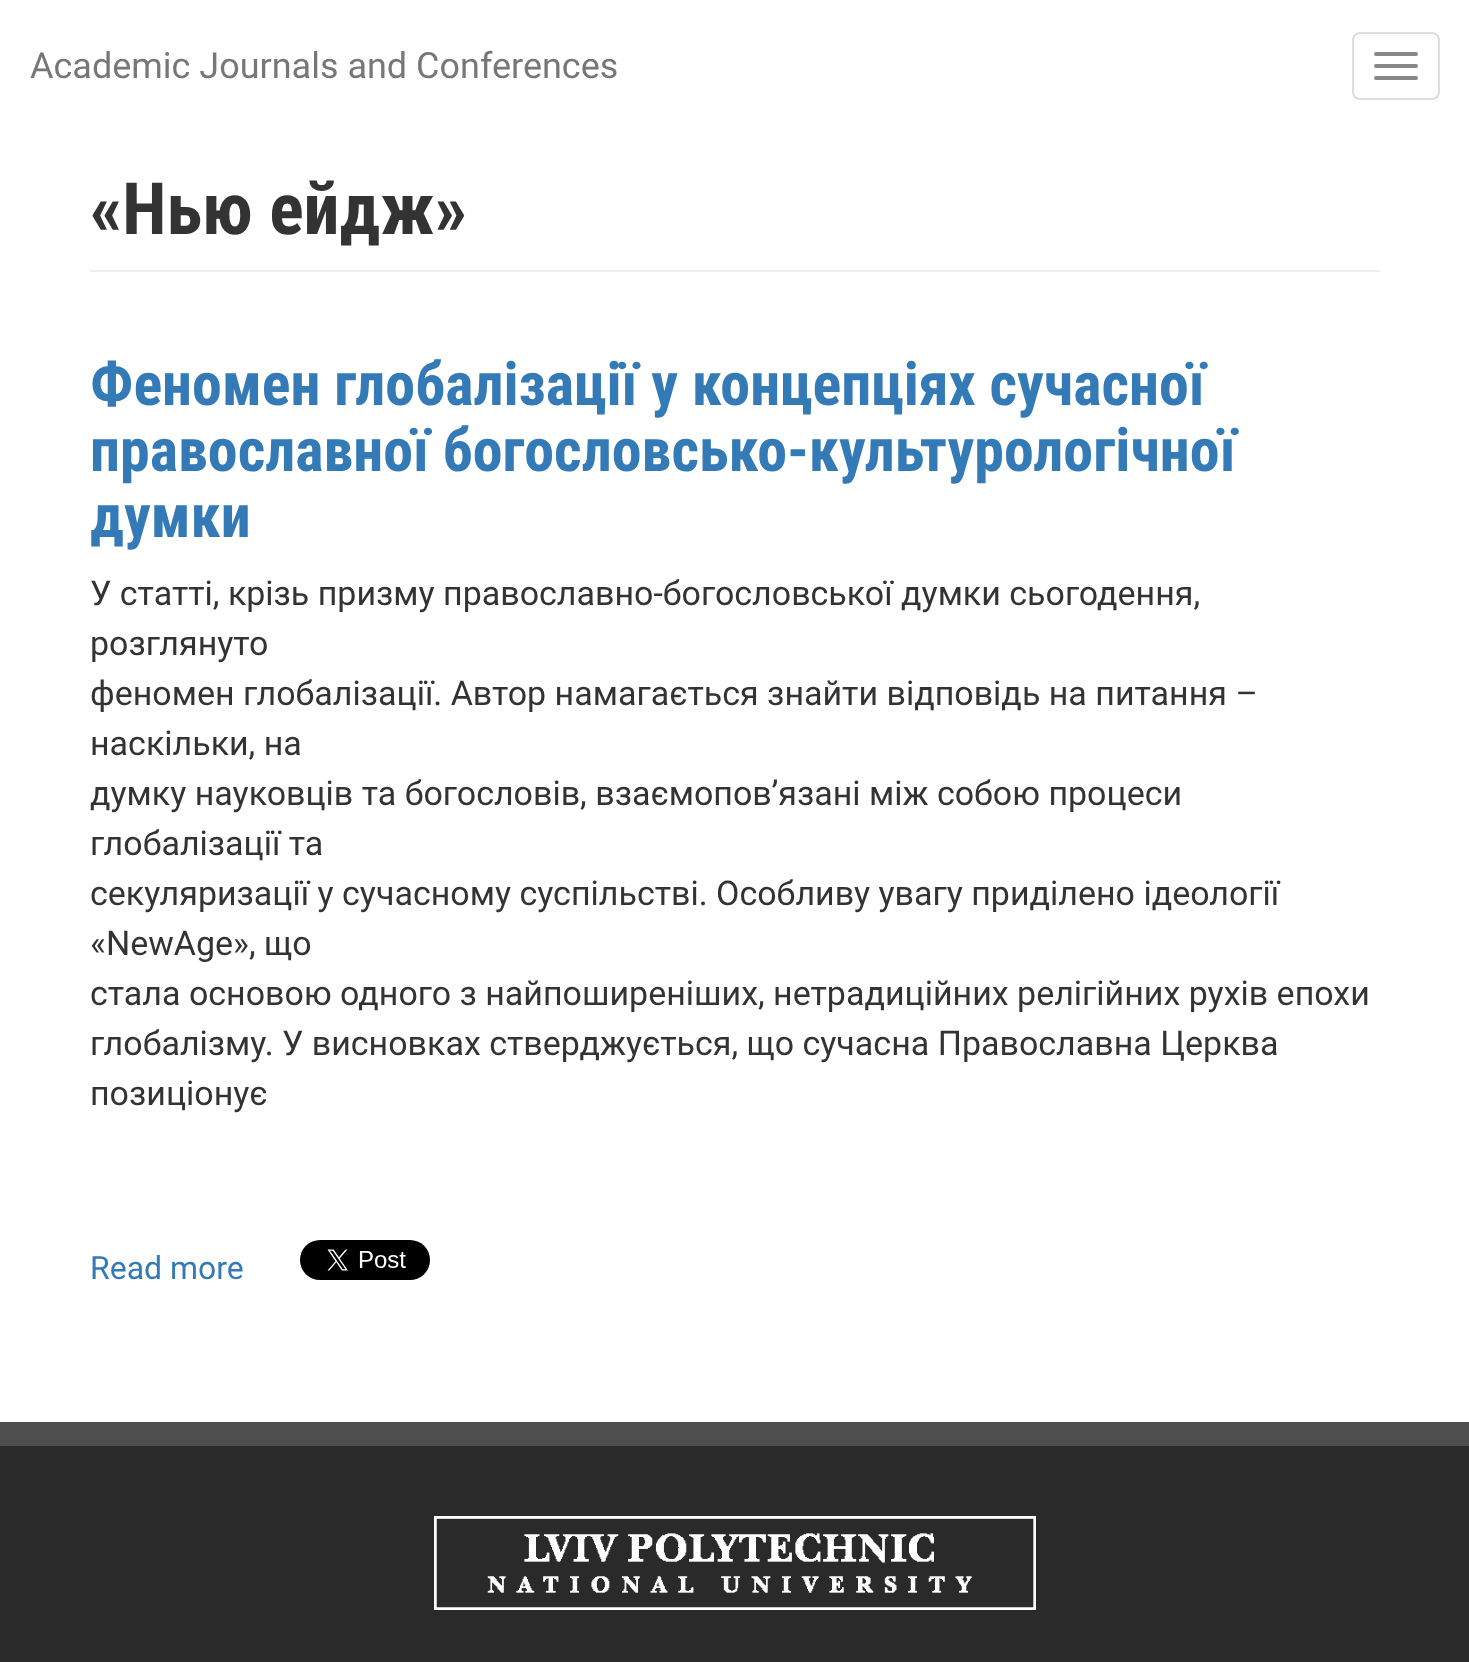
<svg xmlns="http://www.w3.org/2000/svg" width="1469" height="1662">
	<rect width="100%" height="100%" fill="#FFFFFF" />
	<text x="30" y="78" font-family="Roboto" font-size="36" fill="#777777">Academic Journals and Conferences</text>
	<rect x="1353" y="33" width="86" height="66" rx="7" fill="none" stroke="#DDDDDD" stroke-width="2" />
	<rect x="1374" y="52" width="44" height="4" rx="2" fill="#888888" />
	<rect x="1374" y="64" width="44" height="4" rx="2" fill="#888888" />
	<rect x="1374" y="76" width="44" height="4" rx="2" fill="#888888" />
	<rect x="90" y="270" width="1290" height="2" fill="#EEEEEE" />
	<text x="90" y="234" font-family="Roboto Condensed" font-size="72" font-weight="700" fill="#333333">«Нью ейдж»</text>
	<g font-family="Roboto Condensed" font-size="60" font-weight="700" fill="#337AB7">
		<text x="90" y="405">Феномен глобалізації у концепціях сучасної</text>
		<text x="90" y="471">православної богословсько-культурологічної</text>
		<text x="90" y="537">думки</text>
	</g>
	<g font-family="Roboto" font-size="34" fill="#333333">
		<text x="90" y="605">У статті, крізь призму православно-богословської думки сьогодення,</text>
		<text x="90" y="655">розглянуто</text>
		<text x="90" y="705">феномен глобалізації. Автор намагається знайти відповідь на питання –</text>
		<text x="90" y="755">наскільки, на</text>
		<text x="90" y="805">думку науковців та богословів, взаємопов’язані між собою процеси</text>
		<text x="90" y="855">глобалізації та</text>
		<text x="90" y="905">секуляризації у сучасному суспільстві. Особливу увагу приділено ідеології</text>
		<text x="90" y="955">«NewAge», що</text>
		<text x="90" y="1005">стала основою одного з найпоширеніших, нетрадиційних релігійних рухів епохи</text>
		<text x="90" y="1055">глобалізму. У висновках стверджується, що сучасна Православна Церква</text>
		<text x="90" y="1105">позиціонує</text>
	</g>
	<text x="90" y="1279" font-family="Roboto" font-size="32" fill="#337AB7">Read more</text>
	<image x="300" y="1240" width="130" height="40" href="assets/img1.png" />
	<rect x="0" y="1446" width="1469" height="216" fill="#2A2A2A" />
	<rect x="0" y="1422" width="1469" height="24" fill="#4E4E4E" />
	<image x="434" y="1516" width="602" height="94" href="assets/img2.png" />
</svg>
